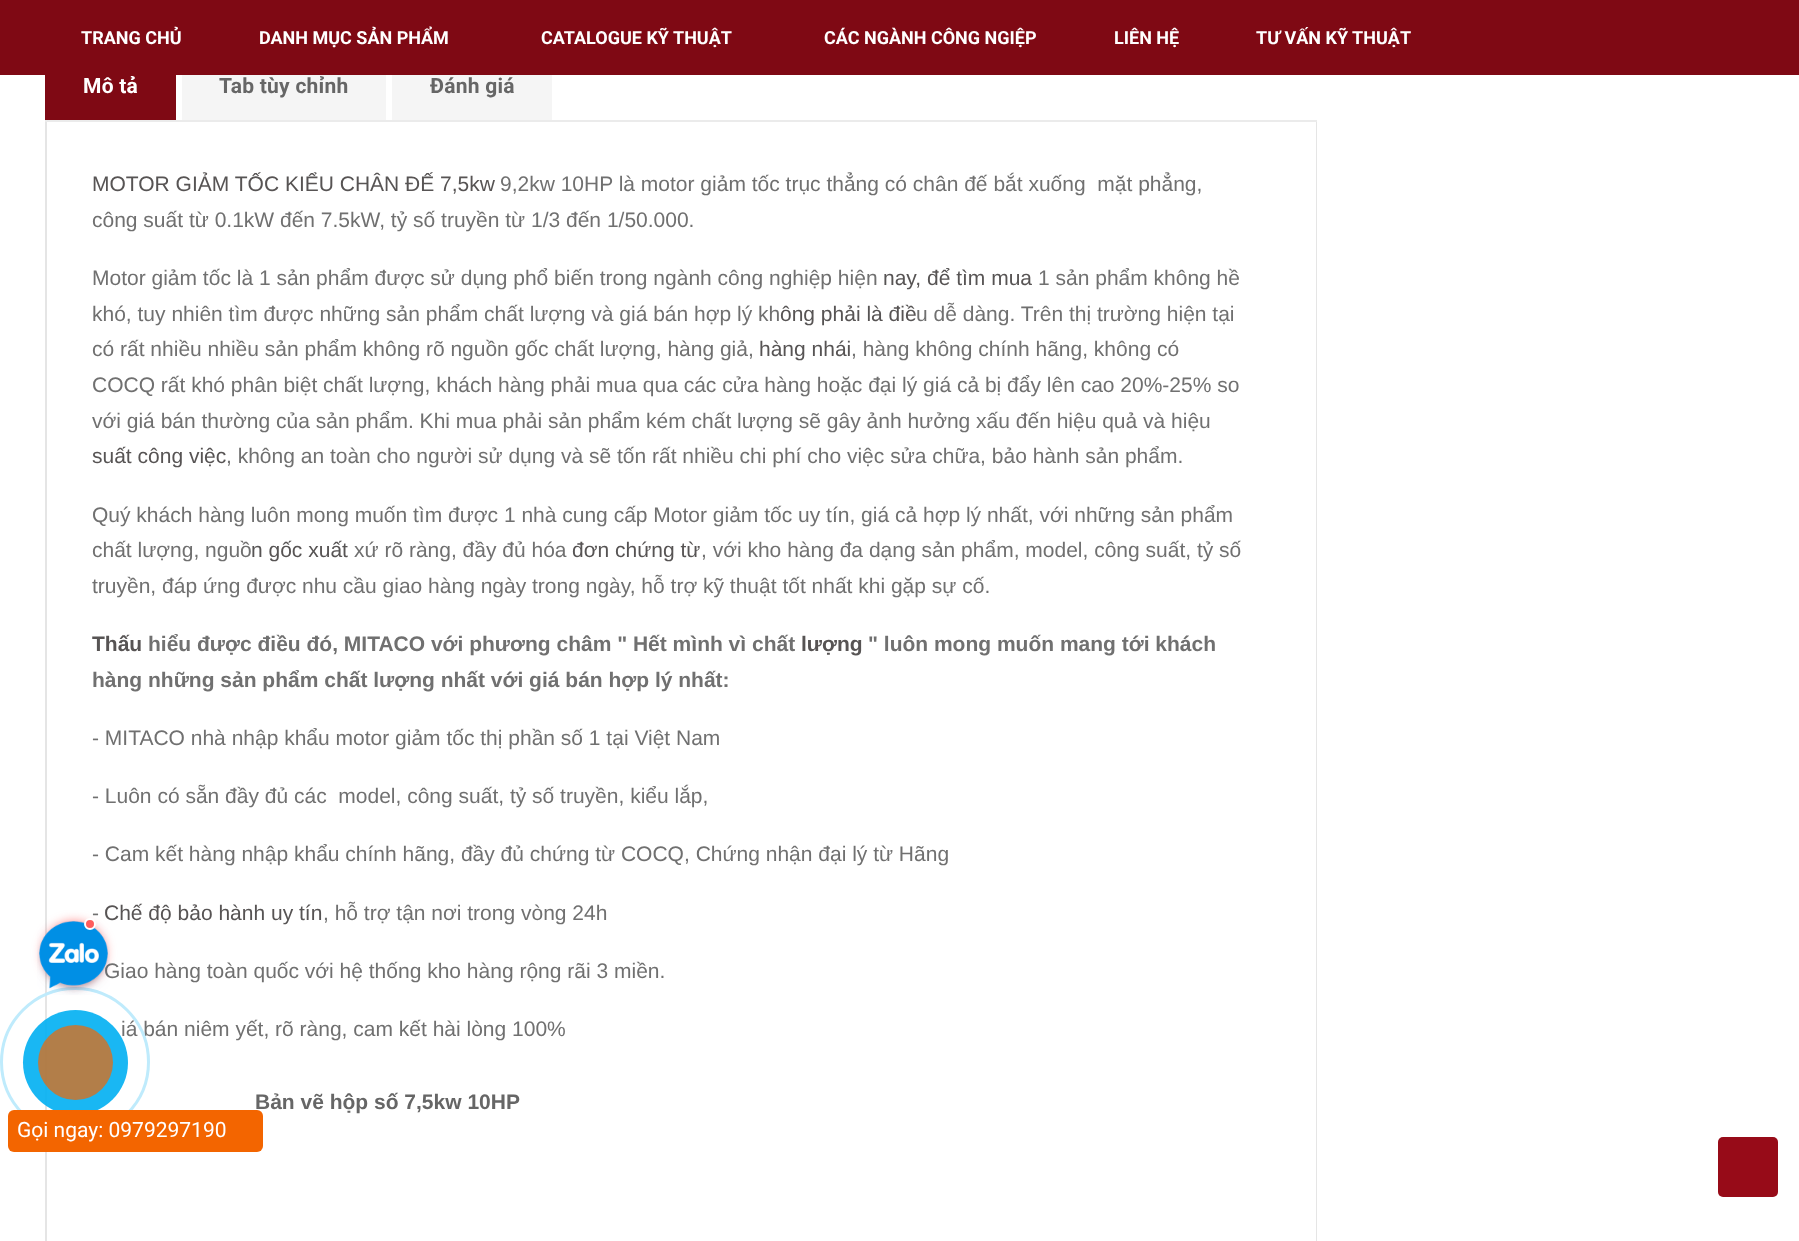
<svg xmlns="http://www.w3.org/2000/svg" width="1799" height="1241">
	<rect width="100%" height="100%" fill="#FFFFFF" />
	<rect x="0" y="0" width="1799" height="75" fill="#7F0914" />
	<g font-family="Roboto" font-size="18" font-weight="700" fill="#FFFFFF">
		<text x="81" y="44">TRANG CHỦ</text>
		<text x="259" y="44">DANH MỤC SẢN PHẨM</text>
		<text x="541" y="44">CATALOGUE KỸ THUẬT</text>
		<text x="824" y="44">CÁC NGÀNH CÔNG NGIỆP</text>
		<text x="1114" y="44">LIÊN HỆ</text>
		<text x="1256" y="44">TƯ VẤN KỸ THUẬT</text>
	</g>
	<rect x="45" y="122" width="2" height="1119" fill="#E5E5E5" />
	<text x="121" y="1036" font-family="Liberation Sans" font-size="21" fill="#707070">iá bán niêm yết, rõ ràng, cam kết hài lòng 100%</text>
	<circle cx="75" cy="1062" r="73.5" fill="none" stroke="#BFEBFC" stroke-width="3" />
	<rect x="44" y="923" width="60" height="60" rx="30" fill="#FF5D5D" filter="blur(6px)" />
	<text x="104" y="920" font-family="Liberation Sans" font-size="21" fill="#575454">Chế độ bảo hành uy tín</text>
	<text x="104" y="978" font-family="Liberation Sans" font-size="21" fill="#707070">Giao hàng toàn quốc với hệ thống kho hàng rộng rãi 3 miền.</text>
	<image x="37" y="921" width="73" height="74" href="assets/img1.png" />
	<circle cx="90" cy="924" r="5" fill="#FF5D5D" stroke="#FFFFFF" stroke-width="2" />
	<rect x="45" y="120" width="1272" height="2" fill="#EBEBEB" />
	<rect x="45" y="75" width="131" height="45" fill="#7F0914" />
	<text x="83" y="93" font-family="Roboto" font-size="21" font-weight="700" letter-spacing="0.25" fill="#FFFFFF">Mô tả</text>
	<rect x="182" y="75" width="204" height="45" fill="#F5F5F5" />
	<text x="219" y="93" font-family="Roboto" font-size="21" font-weight="700" letter-spacing="0.25" fill="#666666">Tab tùy chỉnh</text>
	<rect x="392" y="75" width="160" height="45" fill="#F5F5F5" />
	<text x="430" y="93" font-family="Roboto" font-size="21" font-weight="700" letter-spacing="0.25" fill="#666666">Đánh giá</text>
	<rect x="1316" y="122" width="1" height="1119" fill="#E5E5E5" />
	<text x="92" y="191" font-family="Liberation Sans" font-size="21" fill="#575454">MOTOR GIẢM TỐC KIỂU CHÂN ĐẾ 7,5kw</text>
	<g font-family="Liberation Sans" font-size="21" fill="#707070">
		<text x="500" y="191" xml:space="preserve">9,2kw 10HP là motor giảm tốc trục thẳng có chân đế bắt xuống  mặt phẳng,</text>
		<text x="92" y="227">công suất từ 0.1kW đến 7.5kW, tỷ số truyền từ 1/3 đến 1/50.000.</text>
		<text x="92" y="285">Motor giảm tốc là 1 sản phẩm được sử dụng phổ biến trong ngành công nghiệp hiện</text>
	</g>
	<text x="883" y="285" font-family="Liberation Sans" font-size="21" fill="#575454">nay, để tìm mua</text>
	<g font-family="Liberation Sans" font-size="21" fill="#707070">
		<text x="1038" y="285">1 sản phẩm không hề</text>
		<text x="92" y="321">khó, tuy nhiên tìm được những sản phẩm chất lượng và giá bán hợp lý kh</text>
	</g>
	<text x="780" y="321" font-family="Liberation Sans" font-size="21" fill="#575454">ông phải là điề</text>
	<g font-family="Liberation Sans" font-size="21" fill="#707070">
		<text x="916" y="321">u dễ dàng. Trên thị trường hiện tại</text>
		<text x="92" y="356">có rất nhiều nhiều sản phẩm không rõ nguồn gốc chất lượng, hàng giả,</text>
	</g>
	<text x="759" y="356" font-family="Liberation Sans" font-size="21" fill="#575454">hàng nhái</text>
	<g font-family="Liberation Sans" font-size="21" fill="#707070">
		<text x="851" y="356">, hàng không chính hãng, không có</text>
		<text x="92" y="392">COCQ rất khó phân biệt chất lượng, khách hàng phải mua qua các cửa hàng hoặc đại lý giá cả bị đẩy lên cao 20%-25% so</text>
		<text x="92" y="428">với giá bán thường của sản phẩm. Khi mua phải sản phẩm kém chất lượng sẽ gây ảnh hưởng xấu đến hiệu quả và hiệu</text>
	</g>
	<text x="92" y="463" font-family="Liberation Sans" font-size="21" fill="#575454">suất công việc</text>
	<g font-family="Liberation Sans" font-size="21" fill="#707070">
		<text x="226" y="463">, không an toàn cho người sử dụng và sẽ tốn rất nhiều chi phí cho việc sửa chữa, bảo hành sản phẩm.</text>
		<text x="92" y="522">Quý khách hàng luôn mong muốn tìm được 1 nhà cung cấp Motor giảm tốc uy tín, giá cả hợp lý nhất, với những sản phẩm</text>
		<text x="92" y="557">chất lượng, nguồ</text>
	</g>
	<text x="251" y="557" font-family="Liberation Sans" font-size="21" fill="#575454">n gốc xuất</text>
	<text x="354" y="557" font-family="Liberation Sans" font-size="21" fill="#707070">xứ rõ ràng, đầy đủ hóa</text>
	<text x="572" y="557" font-family="Liberation Sans" font-size="21" fill="#575454">đơn chứng từ</text>
	<g font-family="Liberation Sans" font-size="21" fill="#707070">
		<text x="701" y="557">, với kho hàng đa dạng sản phẩm, model, công suất, tỷ số</text>
		<text x="92" y="593">truyền, đáp ứng được nhu cầu giao hàng ngày trong ngày, hỗ trợ kỹ thuật tốt nhất khi gặp sự cố.</text>
	</g>
	<text x="92" y="651" font-family="Liberation Sans" font-size="21" font-weight="700" fill="#575454">Thấu</text>
	<text x="148" y="651" font-family="Liberation Sans" font-size="21" font-weight="700" fill="#707070">hiểu được điều đó, MITACO với phương châm " Hết mình vì chất</text>
	<text x="801" y="651" font-family="Liberation Sans" font-size="21" font-weight="700" fill="#575454">lượng</text>
	<g font-family="Liberation Sans" font-size="21" font-weight="700" fill="#707070">
		<text x="868" y="651">" luôn mong muốn mang tới khách</text>
		<text x="92" y="687">hàng những sản phẩm chất lượng nhất với giá bán hợp lý nhất:</text>
	</g>
	<g font-family="Liberation Sans" font-size="21" fill="#707070">
		<text x="92" y="745">- MITACO nhà nhập khẩu motor giảm tốc thị phần số 1 tại Việt Nam</text>
		<text x="92" y="803" xml:space="preserve">- Luôn có sẵn đầy đủ các  model, công suất, tỷ số truyền, kiểu lắp,</text>
		<text x="92" y="861">- Cam kết hàng nhập khẩu chính hãng, đầy đủ chứng từ COCQ, Chứng nhận đại lý từ Hãng</text>
		<text x="92" y="920">-</text>
		<text x="323" y="920">, hỗ trợ tận nơi trong vòng 24h</text>
	</g>
	<text x="255" y="1109" font-family="Liberation Sans" font-size="21" font-weight="700" fill="#666666">Bản vẽ hộp số 7,5kw 10HP</text>
	<circle cx="75.5" cy="1062.5" r="52.5" fill="#00AFF2" fill-opacity="0.9" />
	<circle cx="75.5" cy="1062.5" r="37.5" fill="#F36500" fill-opacity="0.7" />
	<rect x="8" y="1110" width="255" height="42" rx="6" fill="#F36500" />
	<text x="17" y="1137" font-family="Roboto" font-size="21" fill="#FFFFFF">Gọi ngay: 0979297190</text>
	<rect x="1718" y="1137" width="60" height="60" rx="5" fill="#970B18" />
</svg>
